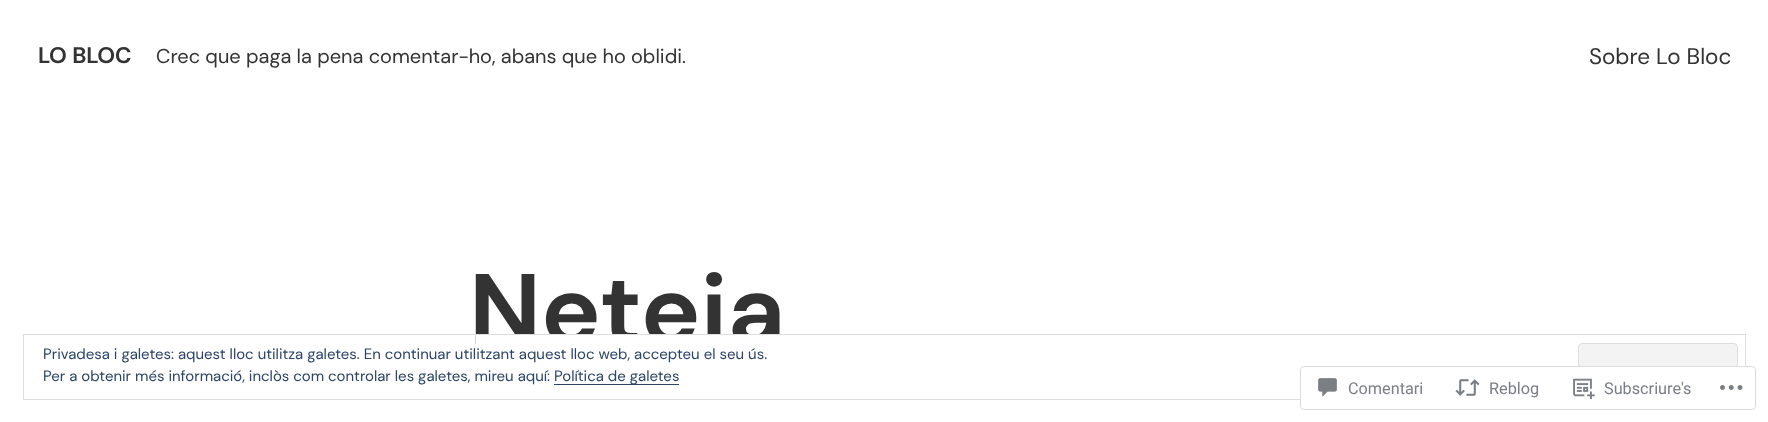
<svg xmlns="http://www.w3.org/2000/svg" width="1768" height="422">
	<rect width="100%" height="100%" fill="#FFFFFF" />
	<text x="38" y="63" font-family="DM Sans" font-size="22.5" font-weight="700" fill="#333333">LO BLOC</text>
	<text x="156" y="63" font-family="DM Sans" font-size="20" fill="#333333">Crec que paga la pena comentar-ho, abans que ho oblidi.</text>
	<text x="1589" y="64" font-family="DM Sans" font-size="22.5" fill="#333333">Sobre Lo Bloc</text>
	<text x="469" y="344" font-family="DM Sans" font-size="100" font-weight="700" fill="#333333">Neteja</text>
	<rect x="476" y="335" width="304" height="31" fill="#FFFFFF" />
	<rect x="23.5" y="334.5" width="1722" height="65" fill="none" stroke="#DEDEDE" />
	<text x="43" y="359" font-family="DM Sans" font-size="15" fill="#2E4467">Privadesa i galetes: aquest lloc utilitza galetes. En continuar utilitzant aquest lloc web, accepteu el seu ús.</text>
	<rect x="1578.5" y="343.5" width="159" height="47" rx="3.5" fill="#F3F3F3" stroke="#DEDEDE" />
	<text x="43" y="381" font-family="DM Sans" font-size="15" fill="#2E4467">Per a obtenir més informació, inclòs com controlar les galetes, mireu aquí:</text>
	<rect x="554" y="384" width="125" height="1" fill="#2E4467" />
	<text x="554" y="381" font-family="DM Sans" font-size="15" fill="#2E4467">Política de galetes</text>
	<rect x="1300" y="366" width="456" height="44" rx="4" fill="#FFFFFF" fill-opacity="0.98" />
	<rect x="1300.5" y="366.5" width="455" height="43" rx="3.5" fill="none" stroke="#DCDCDE" stroke-opacity="0.98" />
	<image x="1318" y="378" width="19" height="19" href="assets/img1.png" />
	<text x="1348" y="394" font-family="Roboto" font-size="16.25" fill="#7B7F85">Comentari</text>
	<image x="1455" y="379" width="25" height="17" href="assets/img2.png" />
	<text x="1489" y="394" font-family="Roboto" font-size="16.25" fill="#7B7F85">Reblog</text>
	<image x="1573" y="378" width="22" height="22" href="assets/img3.png" />
	<text x="1604" y="394" font-family="Roboto" font-size="16.25" fill="#7B7F85">Subscriure's</text>
	<image x="1720" y="385" width="23" height="5" href="assets/img4.png" />
</svg>
